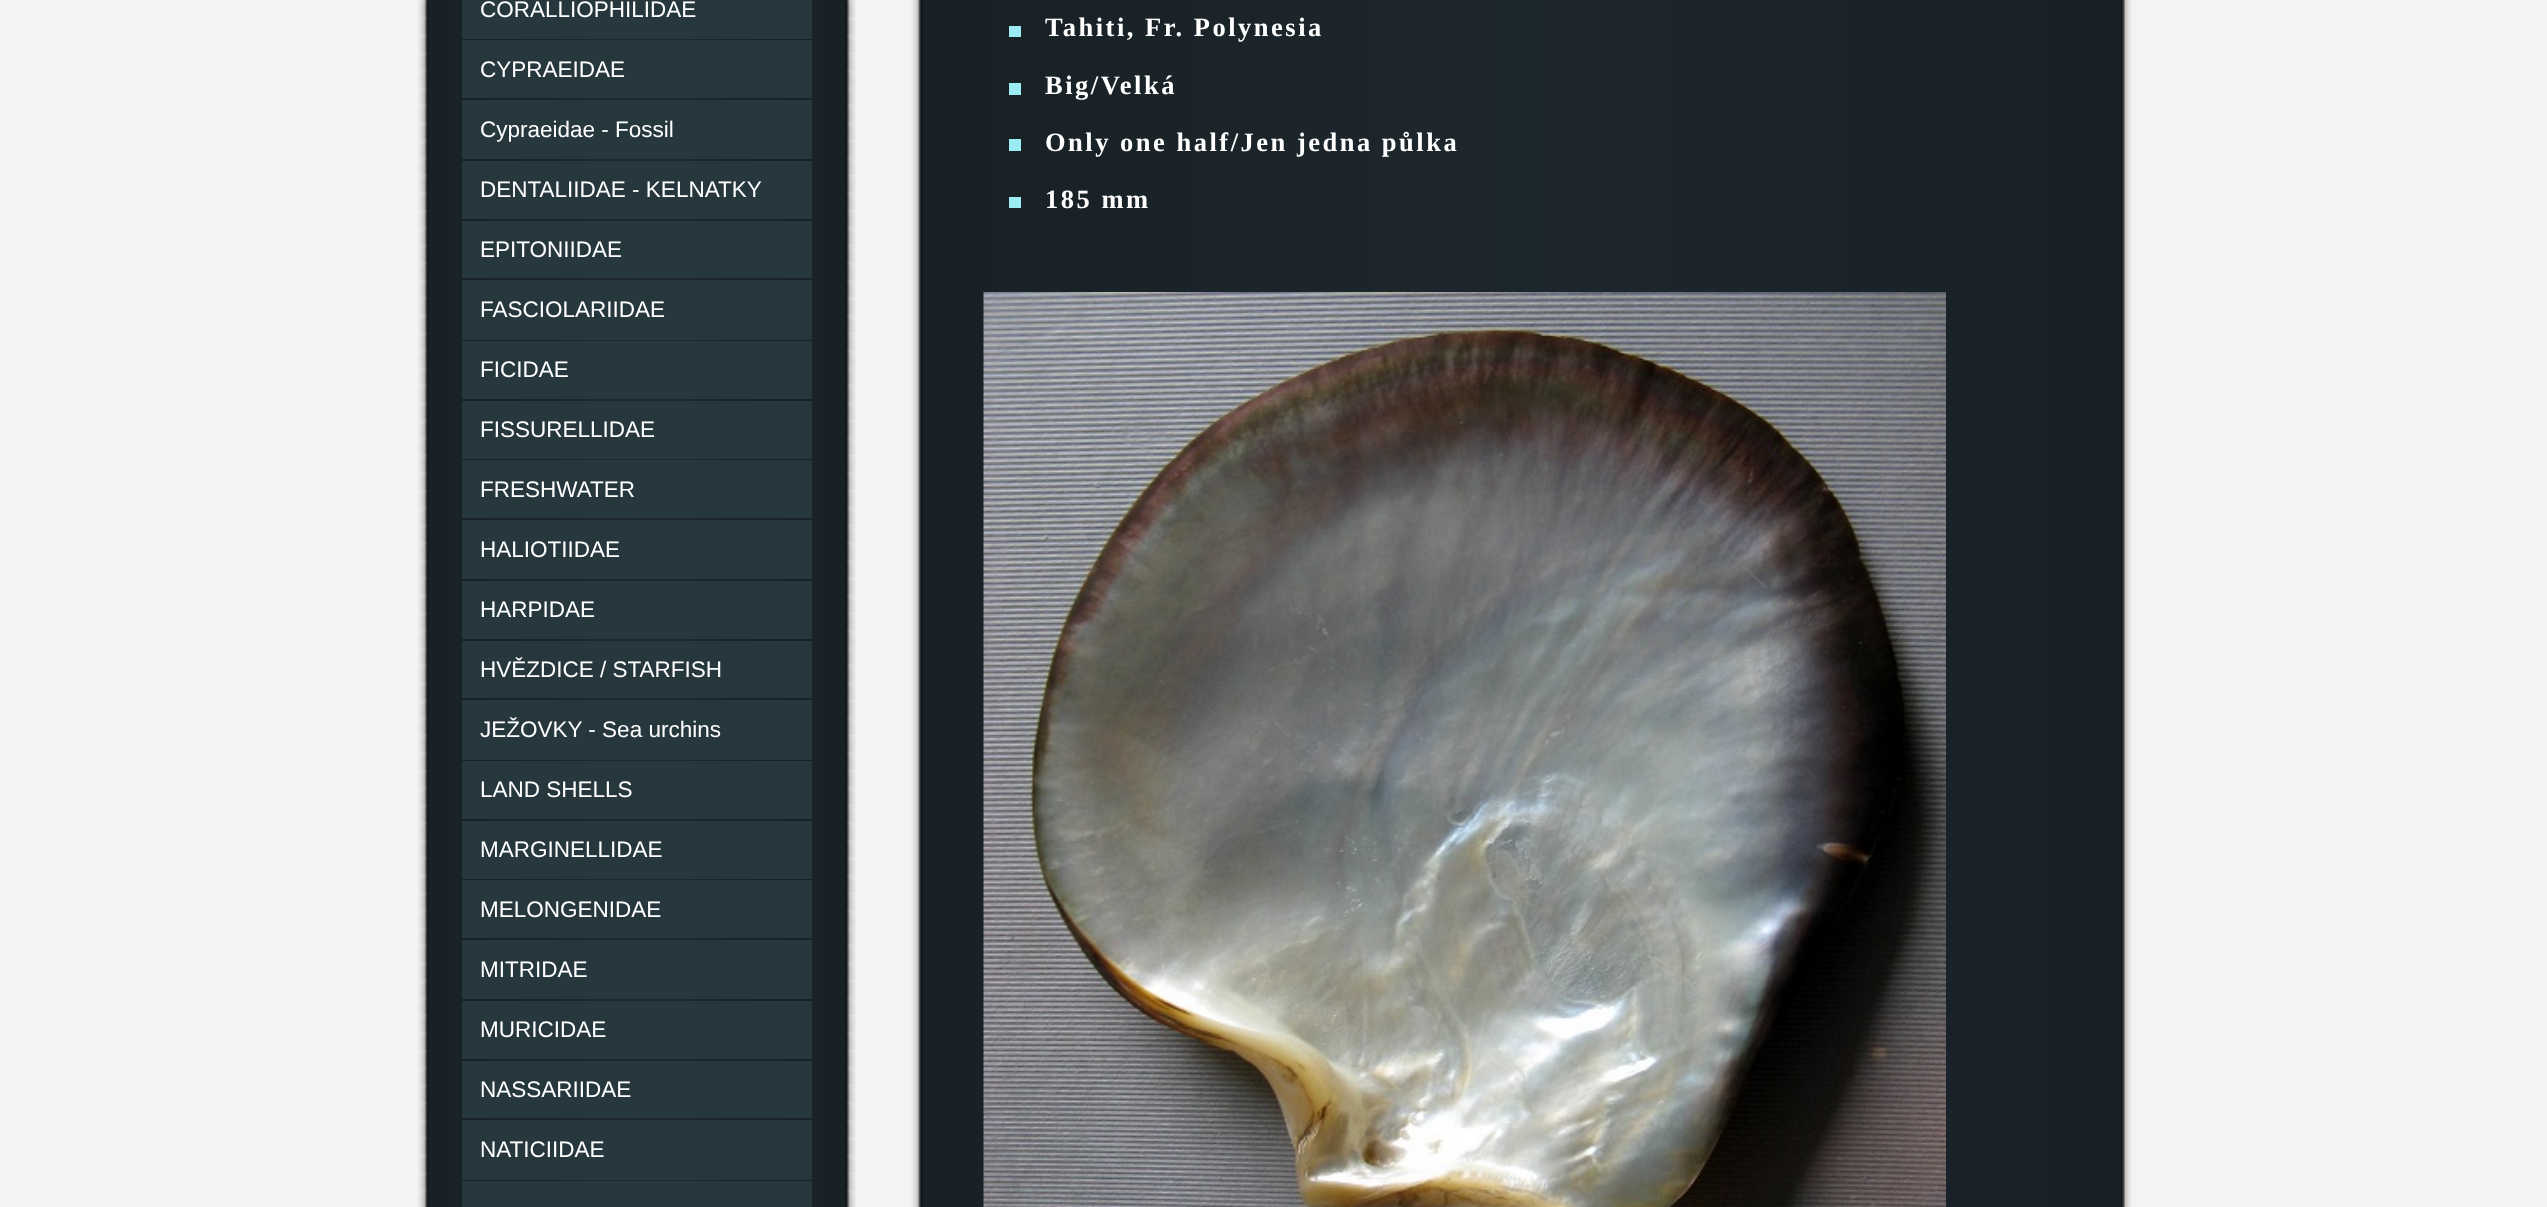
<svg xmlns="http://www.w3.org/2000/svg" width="2547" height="1207">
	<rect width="100%" height="100%" fill="#F4F2F2" />
	<image x="418" y="0" width="438" height="1207" href="assets/img1.png" />
	<rect x="462" y="0" width="350" height="39" fill="#27373E" />
	<text x="480" y="17" font-family="Liberation Sans" font-size="22.5" fill="#FFFFFF">CORALLIOPHILIDAE</text>
	<rect x="462" y="40" width="350" height="58" fill="#27373E" />
	<text x="480" y="77" font-family="Liberation Sans" font-size="22.5" fill="#FFFFFF">CYPRAEIDAE</text>
	<rect x="462" y="100" width="350" height="59" fill="#27373E" />
	<text x="480" y="137" font-family="Liberation Sans" font-size="22.5" fill="#FFFFFF">Cypraeidae - Fossil</text>
	<rect x="462" y="161" width="350" height="58" fill="#27373E" />
	<text x="480" y="197" font-family="Liberation Sans" font-size="22.5" fill="#FFFFFF">DENTALIIDAE - KELNATKY</text>
	<rect x="462" y="221" width="350" height="57" fill="#27373E" />
	<text x="480" y="257" font-family="Liberation Sans" font-size="22.5" fill="#FFFFFF">EPITONIIDAE</text>
	<rect x="462" y="280" width="350" height="60" fill="#27373E" />
	<text x="480" y="317" font-family="Liberation Sans" font-size="22.5" fill="#FFFFFF">FASCIOLARIIDAE</text>
	<rect x="462" y="341" width="350" height="58" fill="#27373E" />
	<text x="480" y="377" font-family="Liberation Sans" font-size="22.5" fill="#FFFFFF">FICIDAE</text>
	<rect x="462" y="401" width="350" height="58" fill="#27373E" />
	<text x="480" y="437" font-family="Liberation Sans" font-size="22.5" fill="#FFFFFF">FISSURELLIDAE</text>
	<rect x="462" y="460" width="350" height="58" fill="#27373E" />
	<text x="480" y="497" font-family="Liberation Sans" font-size="22.5" fill="#FFFFFF">FRESHWATER</text>
	<rect x="462" y="520" width="350" height="59" fill="#27373E" />
	<text x="480" y="557" font-family="Liberation Sans" font-size="22.5" fill="#FFFFFF">HALIOTIIDAE</text>
	<rect x="462" y="581" width="350" height="58" fill="#27373E" />
	<text x="480" y="617" font-family="Liberation Sans" font-size="22.5" fill="#FFFFFF">HARPIDAE</text>
	<rect x="462" y="641" width="350" height="57" fill="#27373E" />
	<text x="480" y="677" font-family="Liberation Sans" font-size="22.5" fill="#FFFFFF">HVĚZDICE / STARFISH</text>
	<rect x="462" y="700" width="350" height="60" fill="#27373E" />
	<text x="480" y="737" font-family="Liberation Sans" font-size="22.5" fill="#FFFFFF">JEŽOVKY - Sea urchins</text>
	<rect x="462" y="761" width="350" height="58" fill="#27373E" />
	<text x="480" y="797" font-family="Liberation Sans" font-size="22.5" fill="#FFFFFF">LAND SHELLS</text>
	<rect x="462" y="821" width="350" height="58" fill="#27373E" />
	<text x="480" y="857" font-family="Liberation Sans" font-size="22.5" fill="#FFFFFF">MARGINELLIDAE</text>
	<rect x="462" y="880" width="350" height="58" fill="#27373E" />
	<text x="480" y="917" font-family="Liberation Sans" font-size="22.5" fill="#FFFFFF">MELONGENIDAE</text>
	<rect x="462" y="940" width="350" height="59" fill="#27373E" />
	<text x="480" y="977" font-family="Liberation Sans" font-size="22.5" fill="#FFFFFF">MITRIDAE</text>
	<rect x="462" y="1001" width="350" height="58" fill="#27373E" />
	<text x="480" y="1037" font-family="Liberation Sans" font-size="22.5" fill="#FFFFFF">MURICIDAE</text>
	<rect x="462" y="1061" width="350" height="57" fill="#27373E" />
	<text x="480" y="1097" font-family="Liberation Sans" font-size="22.5" fill="#FFFFFF">NASSARIIDAE</text>
	<rect x="462" y="1120" width="350" height="60" fill="#27373E" />
	<text x="480" y="1157" font-family="Liberation Sans" font-size="22.5" fill="#FFFFFF">NATICIIDAE</text>
	<rect x="462" y="1181" width="350" height="26" fill="#27373E" />
	<image x="911" y="0" width="1220" height="1207" href="assets/img2.png" />
	<rect x="1009" y="26" width="12" height="11" fill="#9BECF3" />
	<text x="1045" y="36" font-family="Liberation Serif" font-size="26.5" font-weight="700" letter-spacing="2.5" fill="#FFFFFF">Tahiti, Fr. Polynesia</text>
	<rect x="1009" y="83" width="12" height="12" fill="#9BECF3" />
	<text x="1045" y="94" font-family="Liberation Serif" font-size="26.5" font-weight="700" letter-spacing="2.5" fill="#FFFFFF">Big/Velká</text>
	<rect x="1009" y="139" width="12" height="12" fill="#9BECF3" />
	<text x="1045" y="151" font-family="Liberation Serif" font-size="26.5" font-weight="700" letter-spacing="2.5" fill="#FFFFFF">Only one half/Jen jedna půlka</text>
	<rect x="1009" y="197" width="12" height="11" fill="#9BECF3" />
	<text x="1045" y="208" font-family="Liberation Serif" font-size="26.5" font-weight="700" letter-spacing="2.5" fill="#FFFFFF">185 mm</text>
	<image x="983" y="292" width="963" height="915" href="assets/img3.png" />
</svg>
